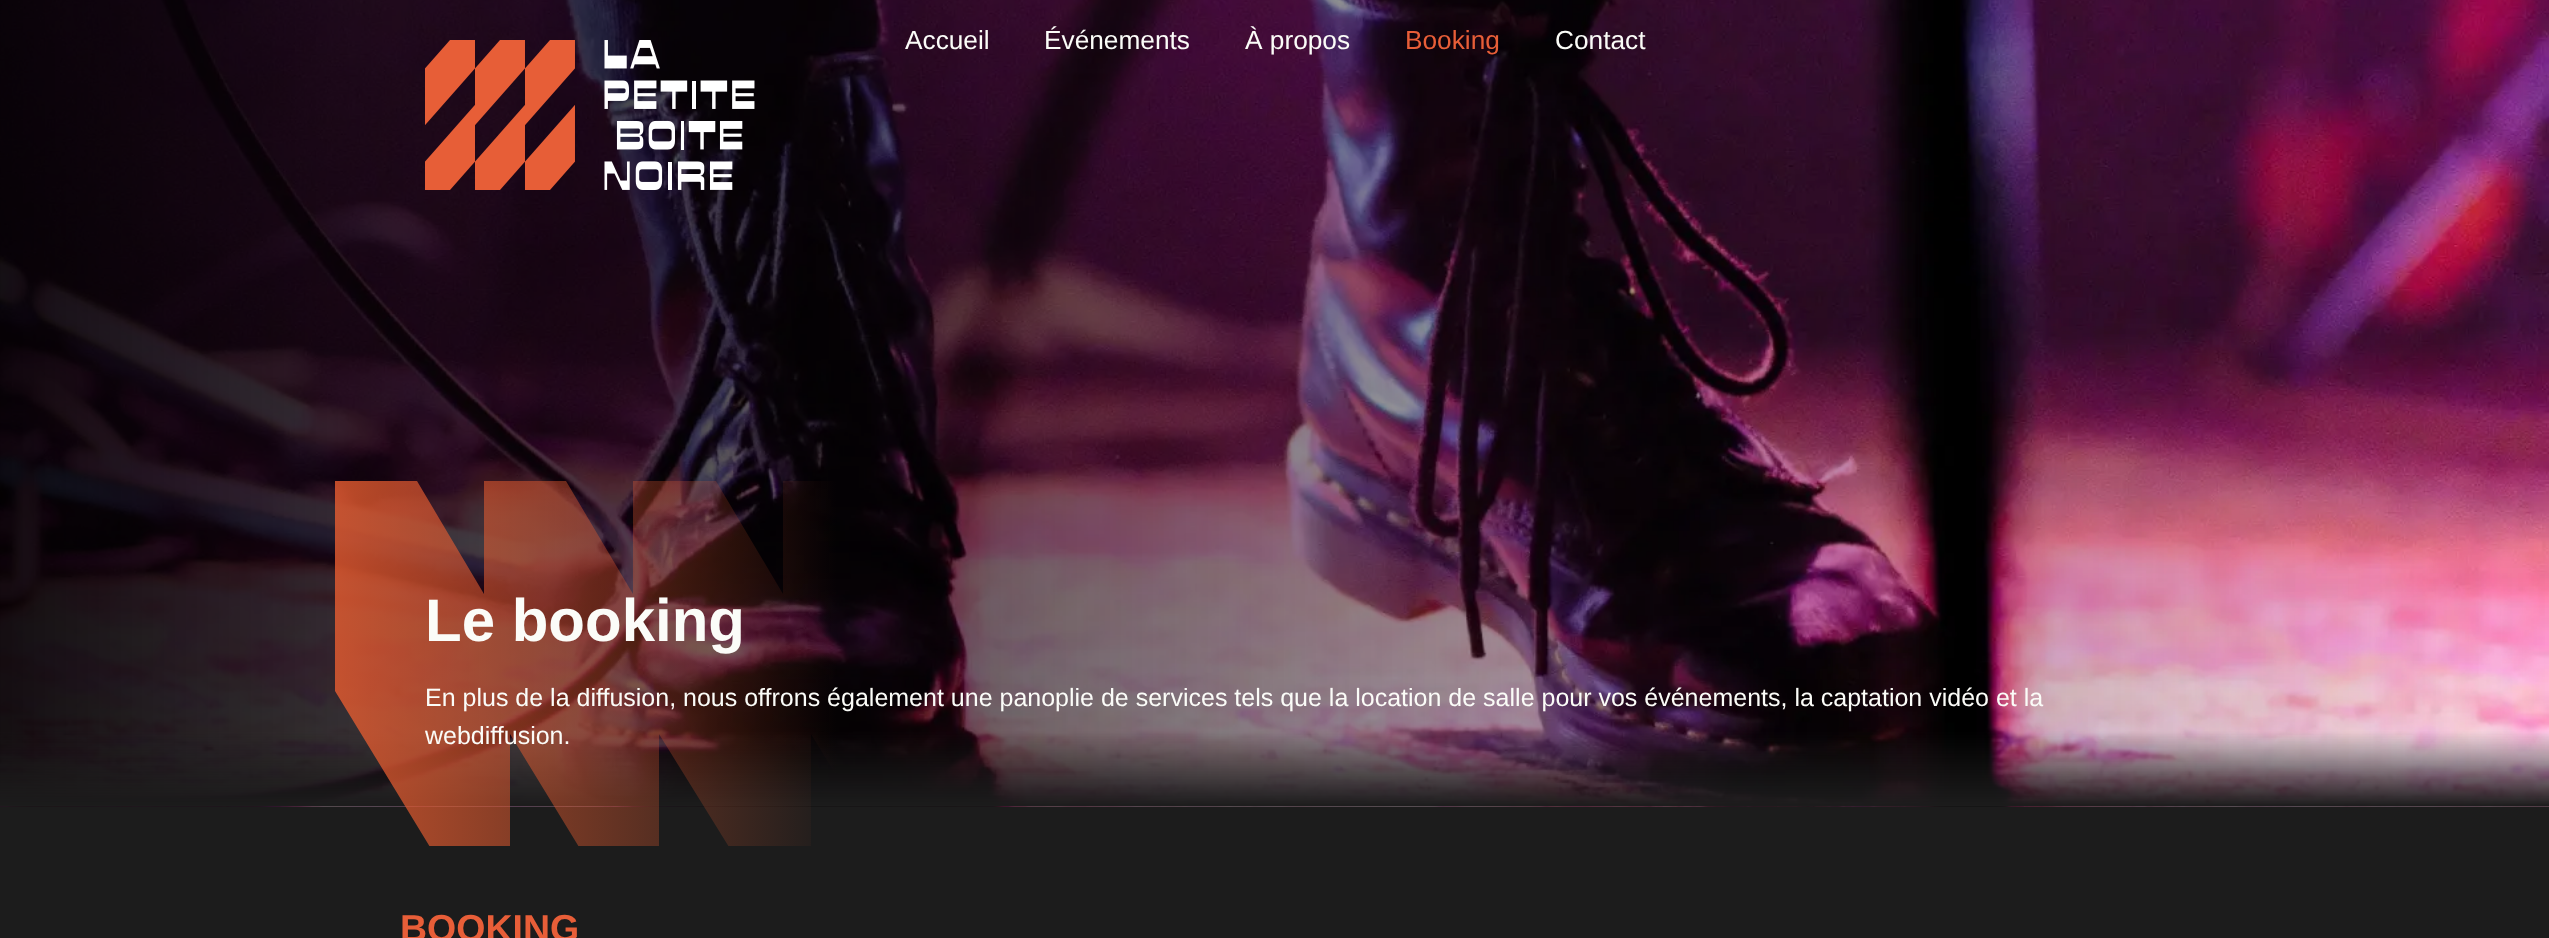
<svg xmlns="http://www.w3.org/2000/svg" width="2549" height="938">
	<defs>
		<clipPath id="clip1"><rect x="335" y="481" width="625" height="365" /></clipPath>
		<linearGradient id="g1" gradientUnits="userSpaceOnUse" x1="335" y1="664" x2="837" y2="664"><stop offset="0" stop-color="#E95D30" stop-opacity="0.8" /><stop offset="1" stop-color="#E95D30" stop-opacity="0" /></linearGradient>
	</defs>
	<rect width="100%" height="100%" fill="#1C1C1C" />
	<image x="0" y="0" width="2549" height="807" href="assets/img2.png" />
	<image x="425" y="40" width="330" height="150" href="assets/img1.png" />
	<g font-family="Liberation Sans" font-size="26.25" fill="#FBFCF8">
		<text x="905" y="49">Accueil</text>
		<text x="1044" y="49">Événements</text>
		<text x="1245" y="49">À propos</text>
	</g>
	<text x="1405" y="49" font-family="Liberation Sans" font-size="26.25" fill="#E85E38">Booking</text>
	<text x="1555" y="49" font-family="Liberation Sans" font-size="26.25" fill="#FBFCF8">Contact</text>
	<g clip-path="url(#clip1)">
		<path d="M417 481H335V691L430 847H510V734L579 847H659V734L729 847H811V734L880 847H960V637L863 481H783V594L716 481H633V594L566 481H484V594Z" fill="url(#g1)" />
	</g>
	<text x="425" y="641" font-family="Liberation Sans" font-size="60" font-weight="700" fill="#FBFCF8">Le booking</text>
	<g font-family="Liberation Sans" font-size="25" fill="#FBFCF8">
		<text x="425" y="706">En plus de la diffusion, nous offrons également une panoplie de services tels que la location de salle pour vos événements, la captation vidéo et la</text>
		<text x="425" y="744">webdiffusion.</text>
	</g>
	<text x="400" y="941" font-family="Liberation Sans" font-size="37.5" font-weight="700" fill="#E85E38">BOOKING</text>
</svg>
